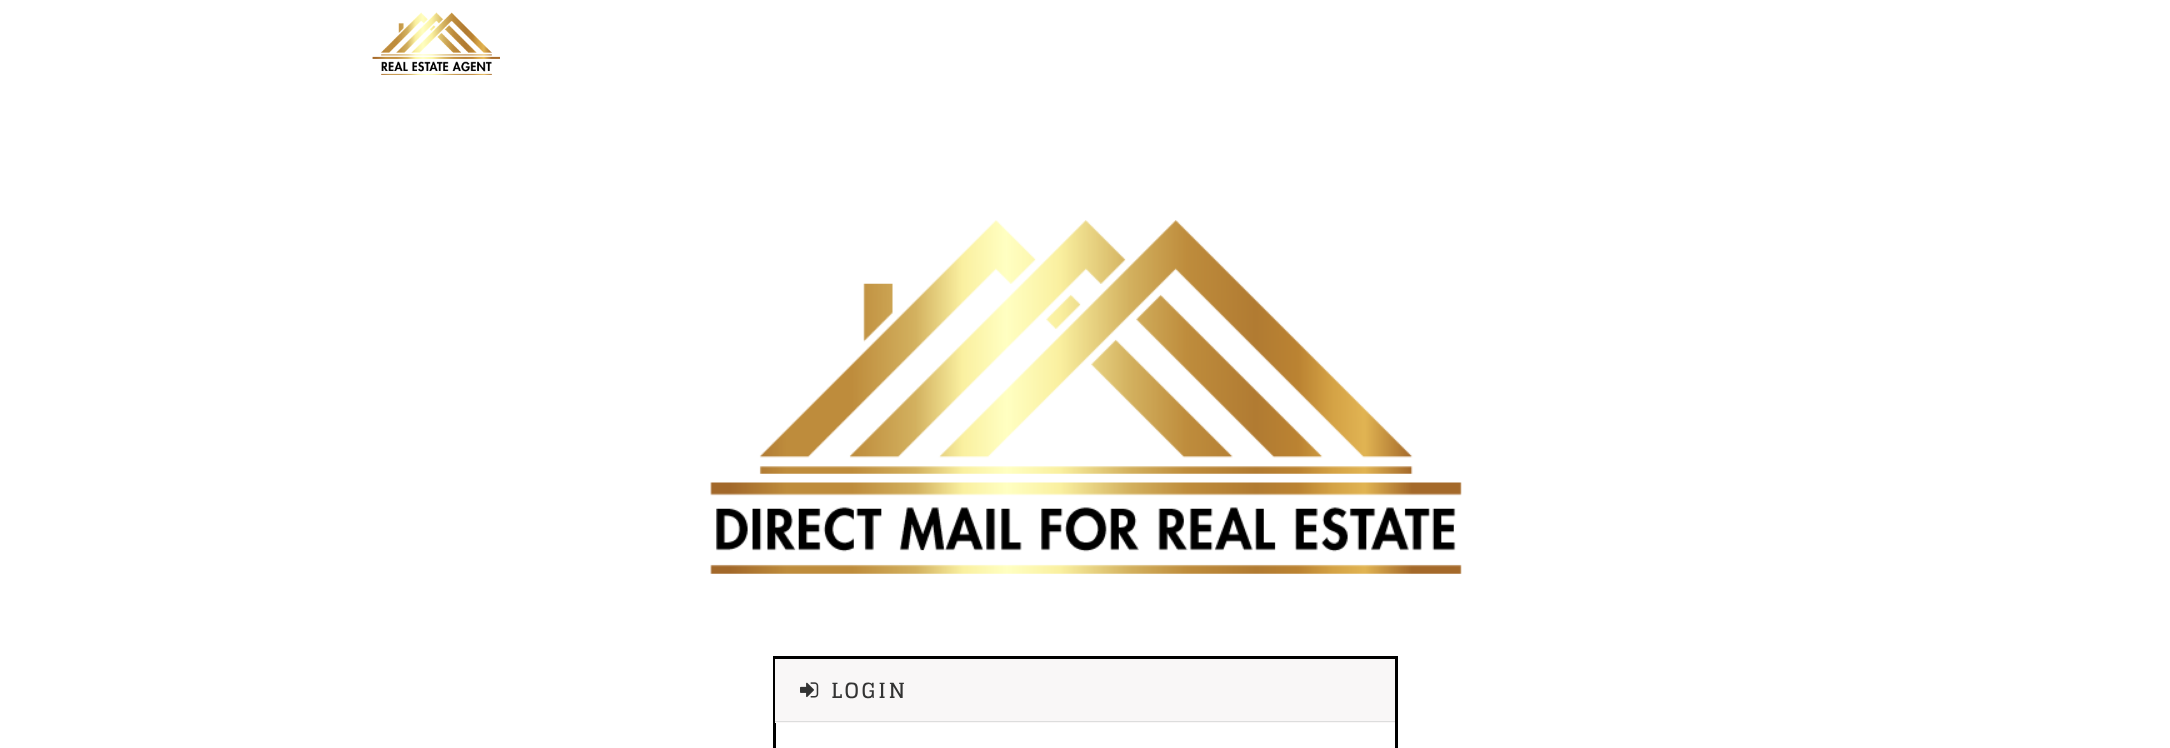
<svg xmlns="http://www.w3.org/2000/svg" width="2170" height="748">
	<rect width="100%" height="100%" fill="#FFFFFF" />
	<image x="372" y="12" width="128" height="63" href="assets/img1.png" />
	<image x="710" y="220" width="752" height="354" href="assets/img2.png" />
	<rect x="774.5" y="657.5" width="622" height="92" fill="none" stroke="#000000" stroke-width="3" />
	<rect x="775" y="659" width="620" height="64" fill="#F9F7F7" />
	<rect x="775" y="721" width="620" height="1" fill="#DDDDDD" />
	<image x="800" y="682" width="19" height="16" href="assets/img3.png" />
	<text x="831" y="698" font-family="Glegoo" font-size="21" font-weight="700" letter-spacing="2.5" fill="#333333">LOGIN</text>
</svg>
